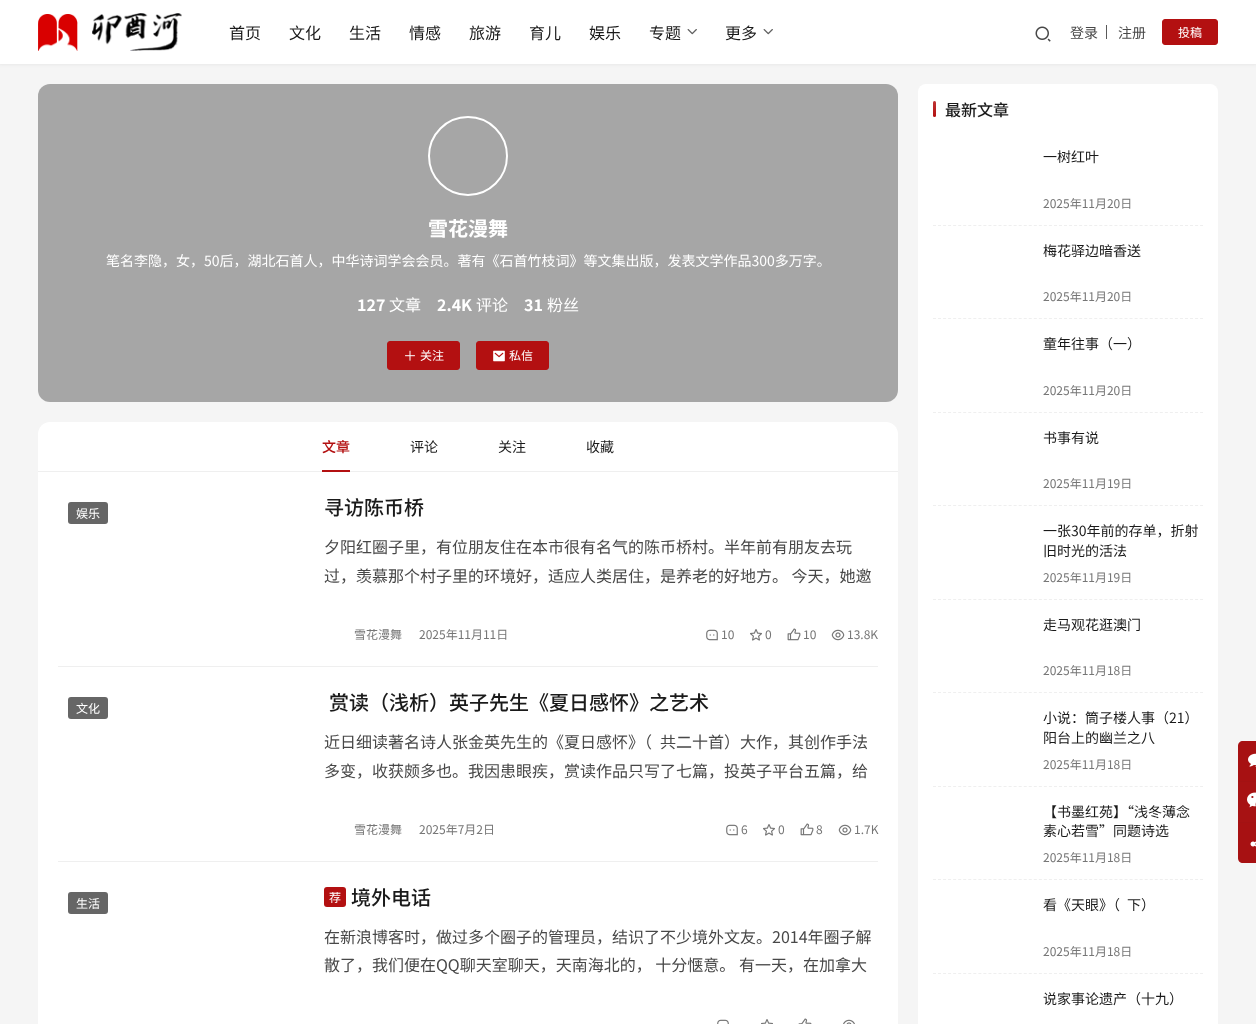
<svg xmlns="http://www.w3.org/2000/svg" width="1256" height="1024">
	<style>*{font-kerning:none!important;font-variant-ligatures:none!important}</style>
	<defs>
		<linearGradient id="g1" gradientUnits="userSpaceOnUse" x1="935" y1="101" x2="935" y2="117"><stop offset="0" stop-color="#FFFFFF" stop-opacity="0.15" /><stop offset="1" stop-color="#FFFFFF" stop-opacity="0" /></linearGradient>
	</defs>
	<rect width="100%" height="100%" fill="#F5F5F5" />
	<rect x="-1" y="-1" width="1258" height="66" fill="#1A1A1A" fill-opacity="0.06" filter="blur(1.5px)" />
	<rect x="0" y="0" width="1256" height="64" fill="#FFFFFF" />
	<image x="38" y="13" width="144" height="38" href="assets/img1.png" />
	<g font-family="Noto Sans CJK SC" font-size="16" fill="#1A1A1A">
		<text x="229" y="39">首页</text>
		<text x="289" y="39">文化</text>
		<text x="349" y="39">生活</text>
		<text x="409" y="39">情感</text>
		<text x="469" y="39">旅游</text>
		<text x="529" y="39">育儿</text>
		<text x="589" y="39">娱乐</text>
		<text x="649" y="39">专题</text>
	</g>
	<image x="687" y="29" width="10" height="6" href="assets/img2.png" />
	<text x="725" y="39" font-family="Noto Sans CJK SC" font-size="16" fill="#1A1A1A">更多</text>
	<image x="763" y="29" width="10" height="6" href="assets/img2.png" />
	<image x="1035" y="26" width="16" height="16" href="assets/img3.png" />
	<text x="1070" y="38" font-family="Noto Sans CJK SC" font-size="14" fill="#484848">登录</text>
	<rect x="1106" y="25" width="1" height="14" fill="#5A5A5A" />
	<text x="1118" y="38" font-family="Noto Sans CJK SC" font-size="14" fill="#484848">注册</text>
	<rect x="1162.5" y="19.5" width="55" height="25" rx="2.5" fill="#B31011" stroke="#B31011" />
	<text x="1178" y="37" font-family="Noto Sans CJK SC" font-size="12" fill="#FFFFFF">投稿</text>
	<rect x="38" y="84" width="860" height="318" rx="12" fill="#EEEEEE" />
	<rect x="38" y="84" width="860" height="318" rx="12" fill="#000000" fill-opacity="0.3" />
	<circle cx="468" cy="156" r="39" fill="none" stroke="#FFFFFF" stroke-width="2" />
	<text x="428" y="236" font-family="Noto Sans CJK SC" font-size="20" font-weight="700" fill="#FFFFFF">雪花漫舞</text>
	<text x="106" y="266" font-family="Noto Sans CJK SC" font-size="14" fill="#FFFFFF">笔名李隐，女，50后，湖北石首人，中华诗词学会会员。著有《石首竹枝词》等文集出版，发表文学作品300多万字。</text>
	<text x="357" y="311" font-family="Noto Sans CJK SC" font-size="16" font-weight="700" fill="#FFFFFF">127</text>
	<text x="389" y="311" font-family="Noto Sans CJK SC" font-size="16" fill="#FFFFFF">文章</text>
	<text x="437" y="311" font-family="Noto Sans CJK SC" font-size="16" font-weight="700" fill="#FFFFFF">2.4K</text>
	<text x="476" y="311" font-family="Noto Sans CJK SC" font-size="16" fill="#FFFFFF">评论</text>
	<text x="524" y="311" font-family="Noto Sans CJK SC" font-size="16" font-weight="700" fill="#FFFFFF">31</text>
	<text x="547" y="311" font-family="Noto Sans CJK SC" font-size="16" fill="#FFFFFF">粉丝</text>
	<rect x="387.5" y="341.5" width="72" height="28" rx="2.5" fill="#B31011" stroke="#B31011" />
	<image x="405" y="350" width="10" height="11" href="assets/img4.png" />
	<text x="420" y="360" font-family="Noto Sans CJK SC" font-size="12" fill="#FFFFFF">关注</text>
	<rect x="476.5" y="341.5" width="72" height="28" rx="2.5" fill="#B31011" stroke="#B31011" />
	<image x="493" y="350" width="12" height="12" href="assets/img5.png" />
	<text x="509" y="360" font-family="Noto Sans CJK SC" font-size="12" fill="#FFFFFF">私信</text>
	<path d="M50 422H886C892.5 422 898 427.5 898 434V472H38V434C38 427.5 43.5 422 50 422Z" fill="#FFFFFF" />
	<rect x="38" y="471" width="860" height="1" fill="#EFEFEF" />
	<rect x="322" y="470" width="28" height="2" fill="#B31011" />
	<text x="322" y="452" font-family="Noto Sans CJK SC" font-size="14" font-weight="500" fill="#B31011">文章</text>
	<g font-family="Noto Sans CJK SC" font-size="14" fill="#1A1A1A">
		<text x="410" y="452">评论</text>
		<text x="498" y="452">关注</text>
		<text x="586" y="452">收藏</text>
	</g>
	<rect x="38" y="472" width="860" height="552" fill="#FFFFFF" />
	<rect x="58" y="666" width="820" height="1" fill="#EFEFEF" />
	<rect x="68" y="502" width="40" height="22" rx="3" fill="#666666" />
	<text x="76" y="518" font-family="Noto Sans CJK SC" font-size="12" fill="#FFFFFF">娱乐</text>
	<text x="324" y="515" font-family="Noto Sans CJK SC" font-size="20" font-weight="500" fill="#1A1A1A">寻访陈币桥</text>
	<g font-family="Noto Sans CJK SC" font-size="16" fill="#484848">
		<text x="324" y="553">夕阳红圈子里，有位朋友住在本市很有名气的陈币桥村。半年前有朋友去玩</text>
		<text x="324" y="582">过，羡慕那个村子里的环境好，适应人类居住，是养老的好地方。 今天，她邀</text>
	</g>
	<g font-family="Noto Sans CJK SC" font-size="12" fill="#767676">
		<text x="354" y="639">雪花漫舞</text>
		<text x="419" y="639">2025年11月11日</text>
	</g>
	<image x="706" y="629" width="12" height="12" href="assets/img6.png" />
	<text x="721" y="639" font-family="Noto Sans CJK SC" font-size="12" fill="#767676">10</text>
	<image x="750" y="629" width="12" height="12" href="assets/img7.png" />
	<text x="765" y="639" font-family="Noto Sans CJK SC" font-size="12" fill="#767676">0</text>
	<image x="787" y="628" width="14" height="13" href="assets/img8.png" />
	<text x="803" y="639" font-family="Noto Sans CJK SC" font-size="12" fill="#767676">10</text>
	<image x="831" y="629" width="14" height="12" href="assets/img9.png" />
	<text x="847" y="639" font-family="Noto Sans CJK SC" font-size="12" fill="#767676">13.8K</text>
	<rect x="58" y="861" width="820" height="1" fill="#EFEFEF" />
	<rect x="68" y="697" width="40" height="22" rx="3" fill="#666666" />
	<text x="76" y="713" font-family="Noto Sans CJK SC" font-size="12" fill="#FFFFFF">文化</text>
	<text x="329" y="710" font-family="Noto Sans CJK SC" font-size="20" font-weight="500" fill="#1A1A1A">赏读（浅析）英子先生《夏日感怀》之艺术</text>
	<g font-family="Noto Sans CJK SC" font-size="16" fill="#484848">
		<text x="324" y="748">近日细读著名诗人张金英先生的《夏日感怀》（</text>
		<text x="660" y="748">共二十首）大作，其创作手法</text>
		<text x="324" y="777">多变，收获颇多也。我因患眼疾，赏读作品只写了七篇，投英子平台五篇，给</text>
	</g>
	<g font-family="Noto Sans CJK SC" font-size="12" fill="#767676">
		<text x="354" y="834">雪花漫舞</text>
		<text x="419" y="834">2025年7月2日</text>
	</g>
	<image x="726" y="824" width="12" height="12" href="assets/img6.png" />
	<text x="741" y="834" font-family="Noto Sans CJK SC" font-size="12" fill="#767676">6</text>
	<image x="763" y="824" width="12" height="12" href="assets/img7.png" />
	<text x="778" y="834" font-family="Noto Sans CJK SC" font-size="12" fill="#767676">0</text>
	<image x="800" y="823" width="14" height="13" href="assets/img8.png" />
	<text x="816" y="834" font-family="Noto Sans CJK SC" font-size="12" fill="#767676">8</text>
	<image x="838" y="824" width="14" height="12" href="assets/img9.png" />
	<text x="854" y="834" font-family="Noto Sans CJK SC" font-size="12" fill="#767676">1.7K</text>
	<rect x="68" y="892" width="40" height="22" rx="3" fill="#666666" />
	<text x="76" y="908" font-family="Noto Sans CJK SC" font-size="12" fill="#FFFFFF">生活</text>
	<rect x="324" y="887" width="22" height="20" rx="3" fill="#B31011" />
	<text x="329" y="902" font-family="Noto Sans CJK SC" font-size="12" fill="#FFFFFF">荐</text>
	<text x="351" y="905" font-family="Noto Sans CJK SC" font-size="20" font-weight="500" fill="#1A1A1A">境外电话</text>
	<g font-family="Noto Sans CJK SC" font-size="16" fill="#484848">
		<text x="324" y="943">在新浪博客时，做过多个圈子的管理员，结识了不少境外文友。2014年圈子解</text>
		<text x="324" y="971">散了，我们便在QQ聊天室聊天，天南海北的， 十分惬意。 有一天，在加拿大</text>
	</g>
	<image x="717" y="1019" width="12" height="5" href="assets/img10.png" />
	<image x="761" y="1019" width="12" height="5" href="assets/img11.png" />
	<image x="798" y="1018" width="14" height="6" href="assets/img12.png" />
	<image x="843" y="1019" width="12" height="5" href="assets/img13.png" />
	<rect x="918" y="84" width="300" height="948" rx="8" fill="#FFFFFF" />
	<rect x="933" y="101" width="3" height="16" rx="1.5" fill="#B31011" />
	<rect x="933" y="101" width="3" height="16" rx="1.5" fill="url(#g1)" />
	<text x="945" y="116" font-family="Noto Sans CJK SC" font-size="16" font-weight="500" fill="#1A1A1A">最新文章</text>
	<path d="M933 225.5H1203" fill="none" stroke="#EFEFEF" stroke-dasharray="3 2.04" />
	<text x="1043" y="162" font-family="Noto Sans CJK SC" font-size="14" fill="#1A1A1A">一树红叶</text>
	<text x="1043" y="208" font-family="Noto Sans CJK SC" font-size="12" fill="#767676">2025年11月20日</text>
	<path d="M933 318.5H1203" fill="none" stroke="#EFEFEF" stroke-dasharray="3 2.04" />
	<text x="1043" y="256" font-family="Noto Sans CJK SC" font-size="14" fill="#1A1A1A">梅花驿边暗香送</text>
	<text x="1043" y="301" font-family="Noto Sans CJK SC" font-size="12" fill="#767676">2025年11月20日</text>
	<path d="M933 412.5H1203" fill="none" stroke="#EFEFEF" stroke-dasharray="3 2.04" />
	<text x="1043" y="349" font-family="Noto Sans CJK SC" font-size="14" fill="#1A1A1A">童年往事（一）</text>
	<text x="1043" y="395" font-family="Noto Sans CJK SC" font-size="12" fill="#767676">2025年11月20日</text>
	<path d="M933 505.5H1203" fill="none" stroke="#EFEFEF" stroke-dasharray="3 2.04" />
	<text x="1043" y="443" font-family="Noto Sans CJK SC" font-size="14" fill="#1A1A1A">书事有说</text>
	<text x="1043" y="488" font-family="Noto Sans CJK SC" font-size="12" fill="#767676">2025年11月19日</text>
	<path d="M933 599.5H1203" fill="none" stroke="#EFEFEF" stroke-dasharray="3 2.04" />
	<g font-family="Noto Sans CJK SC" font-size="14" fill="#1A1A1A">
		<text x="1043" y="536">一张30年前的存单，折射</text>
		<text x="1043" y="556">旧时光的活法</text>
	</g>
	<text x="1043" y="582" font-family="Noto Sans CJK SC" font-size="12" fill="#767676">2025年11月19日</text>
	<path d="M933 692.5H1203" fill="none" stroke="#EFEFEF" stroke-dasharray="3 2.04" />
	<text x="1043" y="630" font-family="Noto Sans CJK SC" font-size="14" fill="#1A1A1A">走马观花逛澳门</text>
	<text x="1043" y="675" font-family="Noto Sans CJK SC" font-size="12" fill="#767676">2025年11月18日</text>
	<path d="M933 786.5H1203" fill="none" stroke="#EFEFEF" stroke-dasharray="3 2.04" />
	<g font-family="Noto Sans CJK SC" font-size="14" fill="#1A1A1A">
		<text x="1043" y="723">小说：筒子楼人事（21）</text>
		<text x="1043" y="743">阳台上的幽兰之八</text>
	</g>
	<text x="1043" y="769" font-family="Noto Sans CJK SC" font-size="12" fill="#767676">2025年11月18日</text>
	<path d="M933 879.5H1203" fill="none" stroke="#EFEFEF" stroke-dasharray="3 2.04" />
	<g font-family="Noto Sans CJK SC" font-size="14" fill="#1A1A1A">
		<text x="1043" y="817">【书墨红苑】“浅冬薄念</text>
		<text x="1043" y="836">素心若雪”同题诗选</text>
	</g>
	<text x="1043" y="862" font-family="Noto Sans CJK SC" font-size="12" fill="#767676">2025年11月18日</text>
	<path d="M933 973.5H1203" fill="none" stroke="#EFEFEF" stroke-dasharray="3 2.04" />
	<text x="1043" y="910" font-family="Noto Sans CJK SC" font-size="14" fill="#1A1A1A">看《天眼》（</text>
	<text x="1127" y="910" font-family="Noto Sans CJK SC" font-size="14" fill="#1A1A1A">下）</text>
	<text x="1043" y="956" font-family="Noto Sans CJK SC" font-size="12" fill="#767676">2025年11月18日</text>
	<text x="1043" y="1004" font-family="Noto Sans CJK SC" font-size="14" fill="#1A1A1A">说家事论遗产（十九）</text>
	<path d="M1243 741H1256C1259 741 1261 743 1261 746V781H1238V746C1238 743 1240 741 1243 741Z" fill="#B21112" />
	<path d="M1243 741H1256C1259 741 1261 743 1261 746V781H1238V746C1238 743 1240 741 1243 741Z" fill="#1A1A1A" fill-opacity="0.07" />
	<image x="1248" y="753" width="8" height="14" href="assets/img14.png" />
	<rect x="1238" y="781" width="18" height="1" fill="#A31213" />
	<rect x="1238" y="782" width="18" height="40" fill="#A71213" />
	<image x="1247" y="792" width="9" height="16" href="assets/img15.png" />
	<path d="M1238 822H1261V858C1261 861 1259 863 1256 863H1243C1240 863 1238 861 1238 858Z" fill="#B21112" />
	<rect x="1238" y="822" width="18" height="1" fill="#A31213" />
	<path d="M1238 823H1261V858C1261 861 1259 863 1256 863H1243C1240 863 1238 861 1238 858Z" fill="#1A1A1A" fill-opacity="0.07" />
	<image x="1250" y="841" width="6" height="6" href="assets/img16.png" />
</svg>
